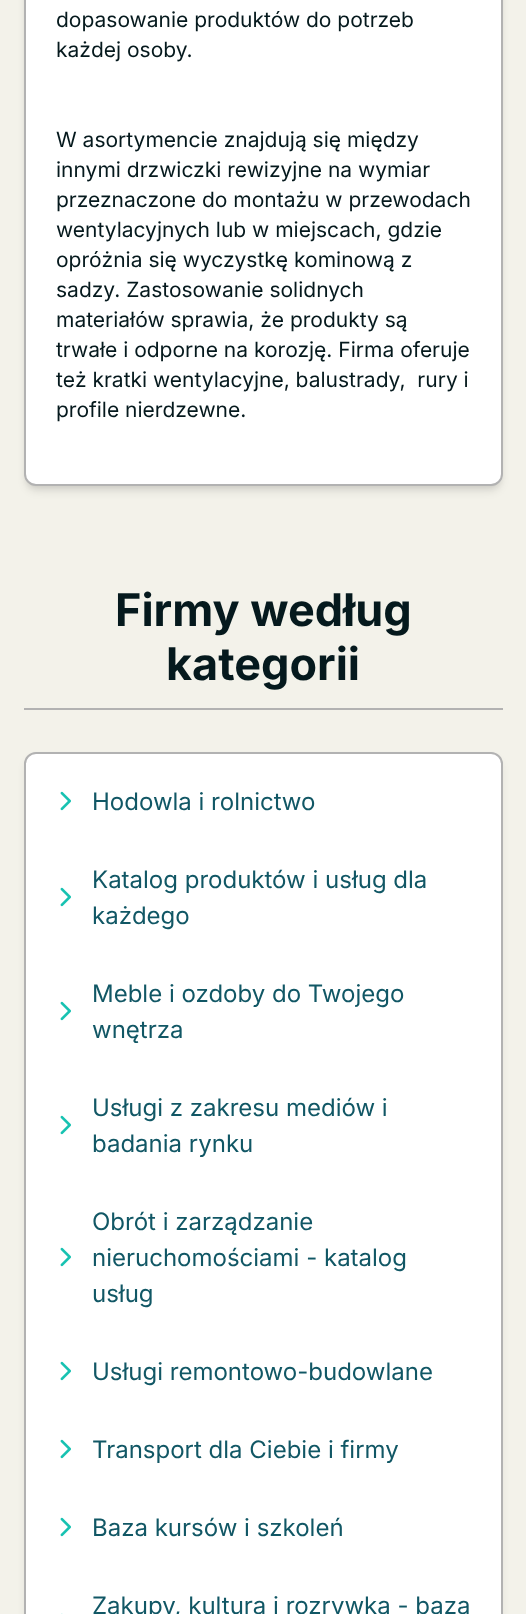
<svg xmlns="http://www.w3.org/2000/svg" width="526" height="1614">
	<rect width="100%" height="100%" fill="#F3F2EA" />
	<rect x="27" y="-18" width="473" height="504" rx="9" fill="#000000" fill-opacity="0.1" filter="blur(3px)" />
	<rect x="26" y="-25" width="475" height="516" rx="11" fill="#000000" fill-opacity="0.1" filter="blur(4.5px)" />
	<rect x="25" y="-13" width="477" height="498" rx="11" fill="#FFFFFF" stroke="#B2B2B2" stroke-width="2" />
	<g font-family="Inter" font-size="21" fill="#05191D">
		<text x="56" y="27">dopasowanie produktów do potrzeb</text>
		<text x="56" y="57">każdej osoby.</text>
		<text x="56" y="147">W asortymencie znajdują się między</text>
		<text x="56" y="177">innymi drzwiczki rewizyjne na wymiar</text>
		<text x="56" y="207">przeznaczone do montażu w przewodach</text>
		<text x="56" y="237">wentylacyjnych lub w miejscach, gdzie</text>
		<text x="56" y="267">opróżnia się wyczystkę kominową z</text>
		<text x="56" y="297">sadzy. Zastosowanie solidnych</text>
		<text x="56" y="327">materiałów sprawia, że produkty są</text>
		<text x="56" y="357">trwałe i odporne na korozję. Firma oferuje</text>
		<text x="56" y="387" xml:space="preserve">też kratki wentylacyjne, balustrady,  rury i</text>
		<text x="56" y="417">profile nierdzewne.</text>
	</g>
	<rect x="24" y="708" width="479" height="2" fill="#B2B2B2" />
	<g font-family="Inter" font-size="45" font-weight="700" fill="#05191D">
		<text x="115" y="626">Firmy według</text>
		<text x="166" y="680">kategorii</text>
	</g>
	<rect x="26" y="759" width="475" height="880" rx="11" fill="#000000" fill-opacity="0.1" filter="blur(4.5px)" />
	<rect x="25" y="753" width="477" height="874" rx="11" fill="#FFFFFF" stroke="#B2B2B2" stroke-width="2" />
	<image x="60" y="791" width="11" height="20" href="assets/img1.png" />
	<text x="92" y="810" font-family="Inter" font-size="24" fill="#115765">Hodowla i rolnictwo</text>
	<image x="60" y="887" width="11" height="20" href="assets/img1.png" />
	<g font-family="Inter" font-size="24" fill="#115765">
		<text x="92" y="888">Katalog produktów i usług dla</text>
		<text x="92" y="924">każdego</text>
	</g>
	<image x="60" y="1001" width="11" height="20" href="assets/img1.png" />
	<g font-family="Inter" font-size="24" fill="#115765">
		<text x="92" y="1002">Meble i ozdoby do Twojego</text>
		<text x="92" y="1038">wnętrza</text>
	</g>
	<image x="60" y="1115" width="11" height="20" href="assets/img1.png" />
	<g font-family="Inter" font-size="24" fill="#115765">
		<text x="92" y="1116">Usługi z zakresu mediów i</text>
		<text x="92" y="1152">badania rynku</text>
	</g>
	<image x="60" y="1247" width="11" height="20" href="assets/img1.png" />
	<g font-family="Inter" font-size="24" fill="#115765">
		<text x="92" y="1230">Obrót i zarządzanie</text>
		<text x="92" y="1266">nieruchomościami - katalog</text>
		<text x="92" y="1302">usług</text>
	</g>
	<image x="60" y="1361" width="11" height="20" href="assets/img1.png" />
	<text x="92" y="1380" font-family="Inter" font-size="24" fill="#115765">Usługi remontowo-budowlane</text>
	<image x="60" y="1439" width="11" height="20" href="assets/img1.png" />
	<text x="92" y="1458" font-family="Inter" font-size="24" fill="#115765">Transport dla Ciebie i firmy</text>
	<image x="60" y="1517" width="11" height="20" href="assets/img1.png" />
	<text x="92" y="1536" font-family="Inter" font-size="24" fill="#115765">Baza kursów i szkoleń</text>
	<image x="61" y="1613" width="2" height="1" href="assets/img2.png" />
	<text x="92" y="1614" font-family="Inter" font-size="24" fill="#115765">Zakupy, kultura i rozrywka - baza</text>
</svg>
